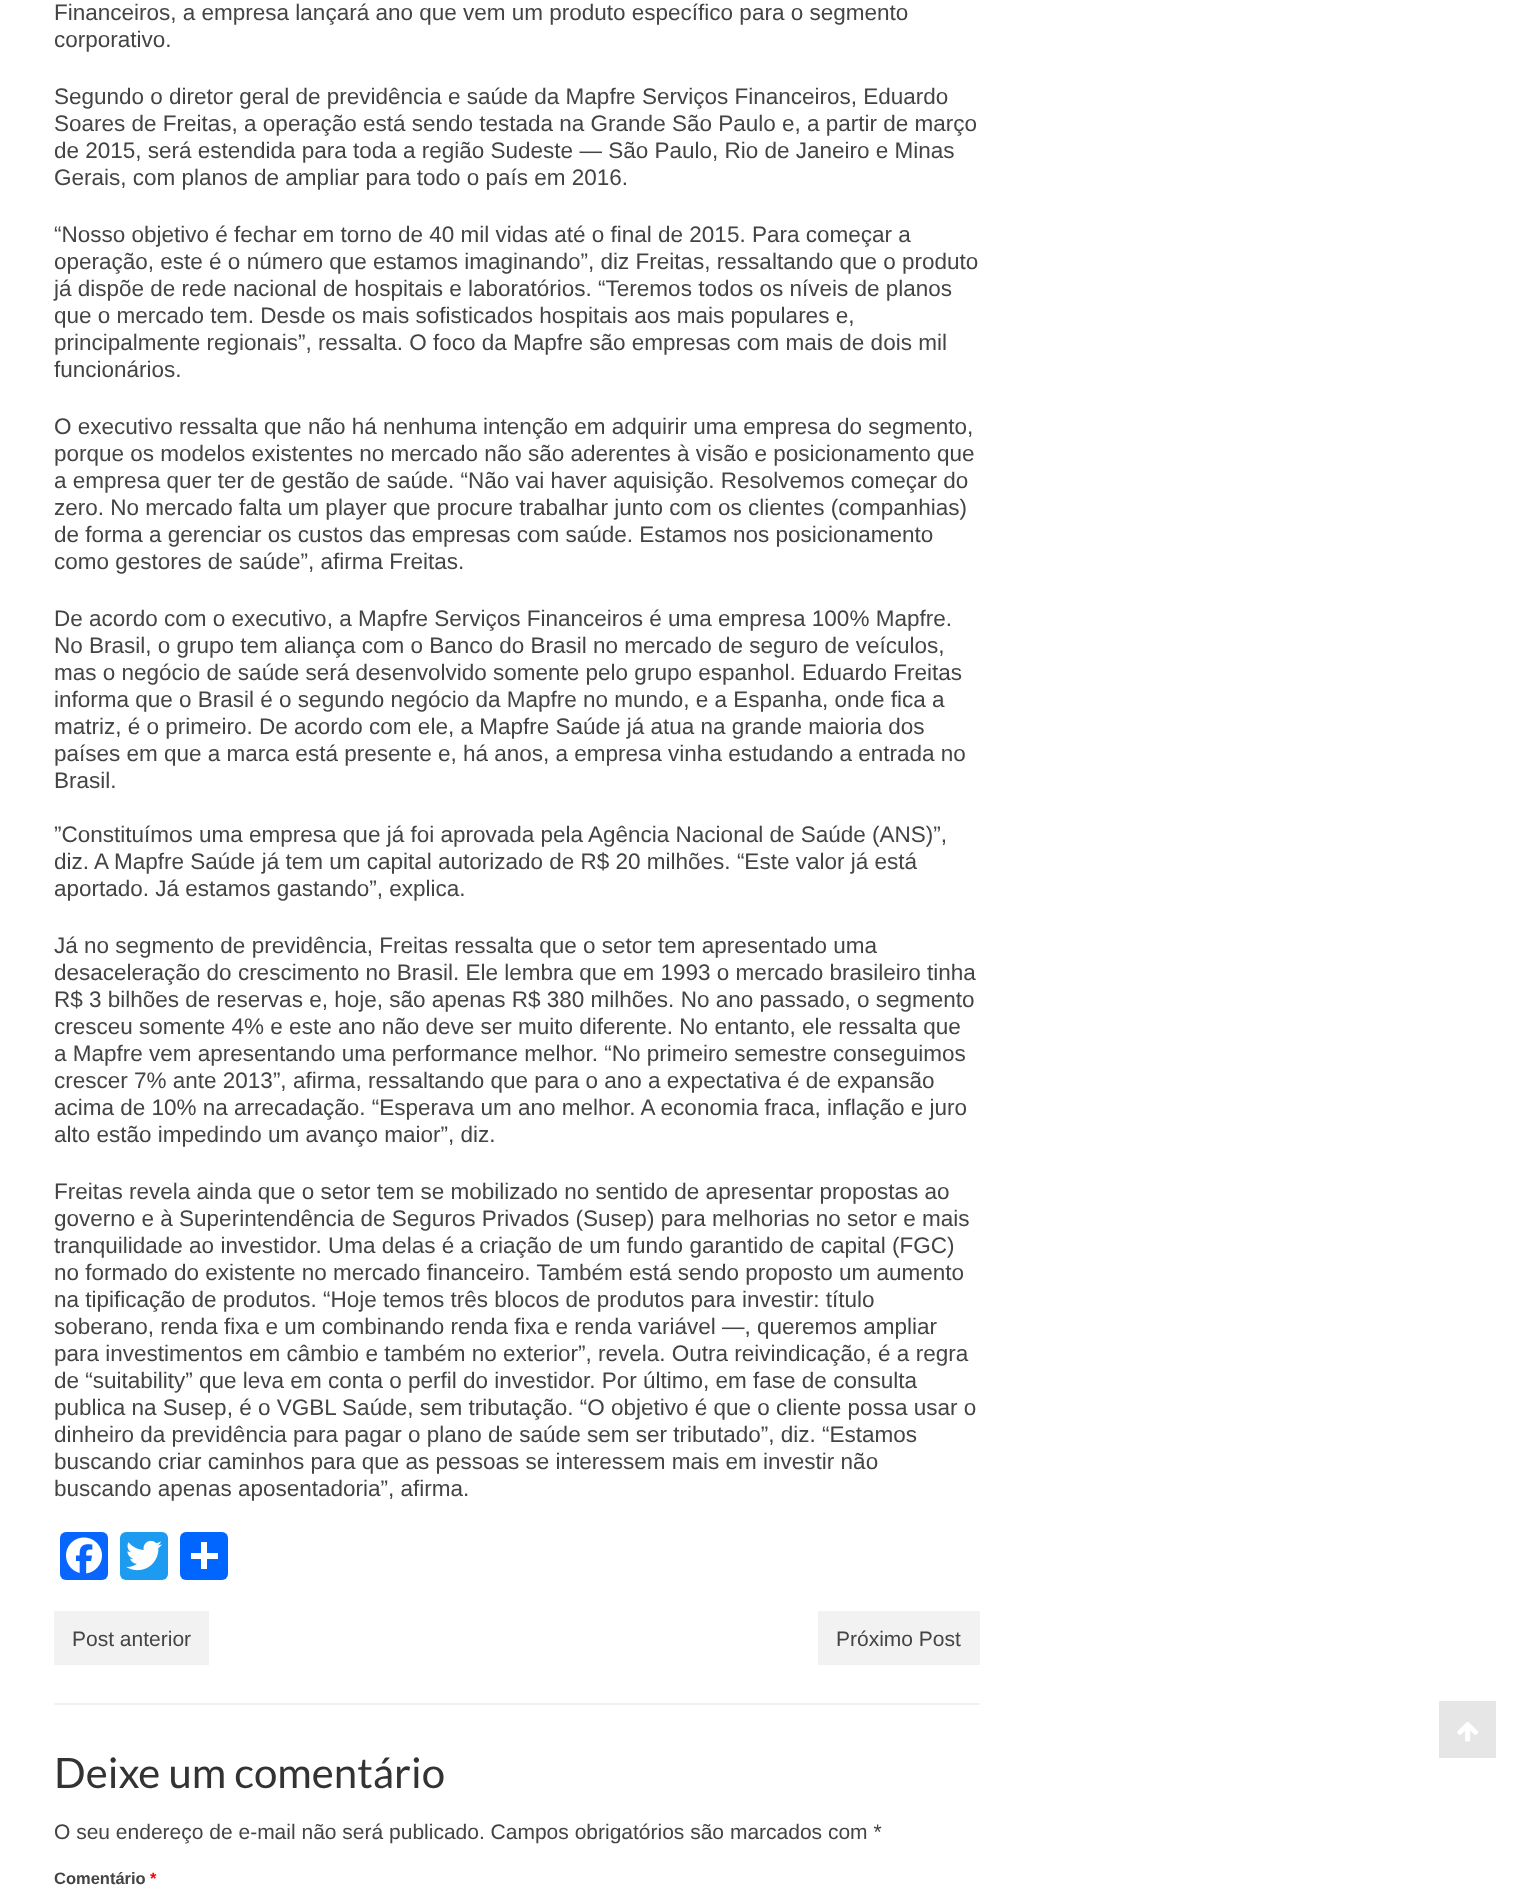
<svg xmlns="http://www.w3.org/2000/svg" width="1518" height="1896">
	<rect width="100%" height="100%" fill="#FFFFFF" />
	<g font-family="Liberation Sans" font-size="22.5" fill="#444444">
		<text x="54" y="20">Financeiros, a empresa lançará ano que vem um produto específico para o segmento</text>
		<text x="54" y="47">corporativo.</text>
		<text x="54" y="104">Segundo o diretor geral de previdência e saúde da Mapfre Serviços Financeiros, Eduardo</text>
		<text x="54" y="131">Soares de Freitas, a operação está sendo testada na Grande São Paulo e, a partir de março</text>
		<text x="54" y="158">de 2015, será estendida para toda a região Sudeste — São Paulo, Rio de Janeiro e Minas</text>
		<text x="54" y="185">Gerais, com planos de ampliar para todo o país em 2016.</text>
		<text x="54" y="242">“Nosso objetivo é fechar em torno de 40 mil vidas até o final de 2015. Para começar a</text>
		<text x="54" y="269">operação, este é o número que estamos imaginando”, diz Freitas, ressaltando que o produto</text>
		<text x="54" y="296">já dispõe de rede nacional de hospitais e laboratórios. “Teremos todos os níveis de planos</text>
		<text x="54" y="323">que o mercado tem. Desde os mais sofisticados hospitais aos mais populares e,</text>
		<text x="54" y="350">principalmente regionais”, ressalta. O foco da Mapfre são empresas com mais de dois mil</text>
		<text x="54" y="377">funcionários.</text>
		<text x="54" y="434">O executivo ressalta que não há nenhuma intenção em adquirir uma empresa do segmento,</text>
		<text x="54" y="461">porque os modelos existentes no mercado não são aderentes à visão e posicionamento que</text>
		<text x="54" y="488">a empresa quer ter de gestão de saúde. “Não vai haver aquisição. Resolvemos começar do</text>
		<text x="54" y="515">zero. No mercado falta um player que procure trabalhar junto com os clientes (companhias)</text>
		<text x="54" y="542">de forma a gerenciar os custos das empresas com saúde. Estamos nos posicionamento</text>
		<text x="54" y="569">como gestores de saúde”, afirma Freitas.</text>
		<text x="54" y="626">De acordo com o executivo, a Mapfre Serviços Financeiros é uma empresa 100% Mapfre.</text>
		<text x="54" y="653">No Brasil, o grupo tem aliança com o Banco do Brasil no mercado de seguro de veículos,</text>
		<text x="54" y="680">mas o negócio de saúde será desenvolvido somente pelo grupo espanhol. Eduardo Freitas</text>
		<text x="54" y="707">informa que o Brasil é o segundo negócio da Mapfre no mundo, e a Espanha, onde fica a</text>
		<text x="54" y="734">matriz, é o primeiro. De acordo com ele, a Mapfre Saúde já atua na grande maioria dos</text>
		<text x="54" y="761">países em que a marca está presente e, há anos, a empresa vinha estudando a entrada no</text>
		<text x="54" y="788">Brasil.</text>
		<text x="54" y="842">”Constituímos uma empresa que já foi aprovada pela Agência Nacional de Saúde (ANS)”,</text>
		<text x="54" y="869">diz. A Mapfre Saúde já tem um capital autorizado de R$ 20 milhões. “Este valor já está</text>
		<text x="54" y="896">aportado. Já estamos gastando”, explica.</text>
		<text x="54" y="953">Já no segmento de previdência, Freitas ressalta que o setor tem apresentado uma</text>
		<text x="54" y="980">desaceleração do crescimento no Brasil. Ele lembra que em 1993 o mercado brasileiro tinha</text>
		<text x="54" y="1007">R$ 3 bilhões de reservas e, hoje, são apenas R$ 380 milhões. No ano passado, o segmento</text>
		<text x="54" y="1034">cresceu somente 4% e este ano não deve ser muito diferente. No entanto, ele ressalta que</text>
		<text x="54" y="1061">a Mapfre vem apresentando uma performance melhor. “No primeiro semestre conseguimos</text>
		<text x="54" y="1088">crescer 7% ante 2013”, afirma, ressaltando que para o ano a expectativa é de expansão</text>
		<text x="54" y="1115">acima de 10% na arrecadação. “Esperava um ano melhor. A economia fraca, inflação e juro</text>
		<text x="54" y="1142">alto estão impedindo um avanço maior”, diz.</text>
		<text x="54" y="1199">Freitas revela ainda que o setor tem se mobilizado no sentido de apresentar propostas ao</text>
		<text x="54" y="1226">governo e à Superintendência de Seguros Privados (Susep) para melhorias no setor e mais</text>
		<text x="54" y="1253">tranquilidade ao investidor. Uma delas é a criação de um fundo garantido de capital (FGC)</text>
		<text x="54" y="1280">no formado do existente no mercado financeiro. Também está sendo proposto um aumento</text>
		<text x="54" y="1307">na tipificação de produtos. “Hoje temos três blocos de produtos para investir: título</text>
		<text x="54" y="1334">soberano, renda fixa e um combinando renda fixa e renda variável —, queremos ampliar</text>
		<text x="54" y="1361">para investimentos em câmbio e também no exterior”, revela. Outra reivindicação, é a regra</text>
		<text x="54" y="1388">de “suitability” que leva em conta o perfil do investidor. Por último, em fase de consulta</text>
		<text x="54" y="1415">publica na Susep, é o VGBL Saúde, sem tributação. “O objetivo é que o cliente possa usar o</text>
		<text x="54" y="1442">dinheiro da previdência para pagar o plano de saúde sem ser tributado”, diz. “Estamos</text>
		<text x="54" y="1469">buscando criar caminhos para que as pessoas se interessem mais em investir não</text>
		<text x="54" y="1496">buscando apenas aposentadoria”, afirma.</text>
	</g>
	<rect x="60" y="1532" width="48" height="48" rx="6" fill="#0866FF" />
	<image x="66" y="1537" width="36" height="37" href="assets/img1.png" />
	<rect x="120" y="1532" width="48" height="48" rx="6" fill="#1D9BF0" />
	<image x="126" y="1540" width="36" height="31" href="assets/img2.png" />
	<rect x="180" y="1532" width="48" height="48" rx="6" fill="#0166FF" />
	<rect x="201" y="1542" width="6" height="27" fill="#FFFFFF" />
	<rect x="191" y="1553" width="27" height="6" fill="#FFFFFF" />
	<rect x="54" y="1703" width="926" height="2" fill="#F2F2F2" />
	<rect x="54" y="1611" width="155" height="54" fill="#F2F2F2" />
	<text x="72" y="1646" font-family="Liberation Sans" font-size="21" fill="#444444">Post anterior</text>
	<rect x="818" y="1611" width="162" height="54" fill="#F2F2F2" />
	<text x="836" y="1646" font-family="Liberation Sans" font-size="21" fill="#444444">Próximo Post</text>
	<text x="54" y="1788" font-family="Lato" font-size="42" fill="#333333">Deixe um comentário</text>
	<text x="54" y="1839" font-family="Liberation Sans" font-size="21" fill="#444444">O seu endereço de e-mail não será publicado. Campos obrigatórios são marcados com *</text>
	<text x="54" y="1884" font-family="Liberation Sans" font-size="16.5" font-weight="700" fill="#444444">Comentário</text>
	<text x="150" y="1884" font-family="Liberation Sans" font-size="16.5" font-weight="700" fill="#FF0000">*</text>
	<rect x="1439" y="1701" width="57" height="57" fill="#E6E6E6" />
	<image x="1457" y="1722" width="21" height="20" href="assets/img3.png" />
</svg>
